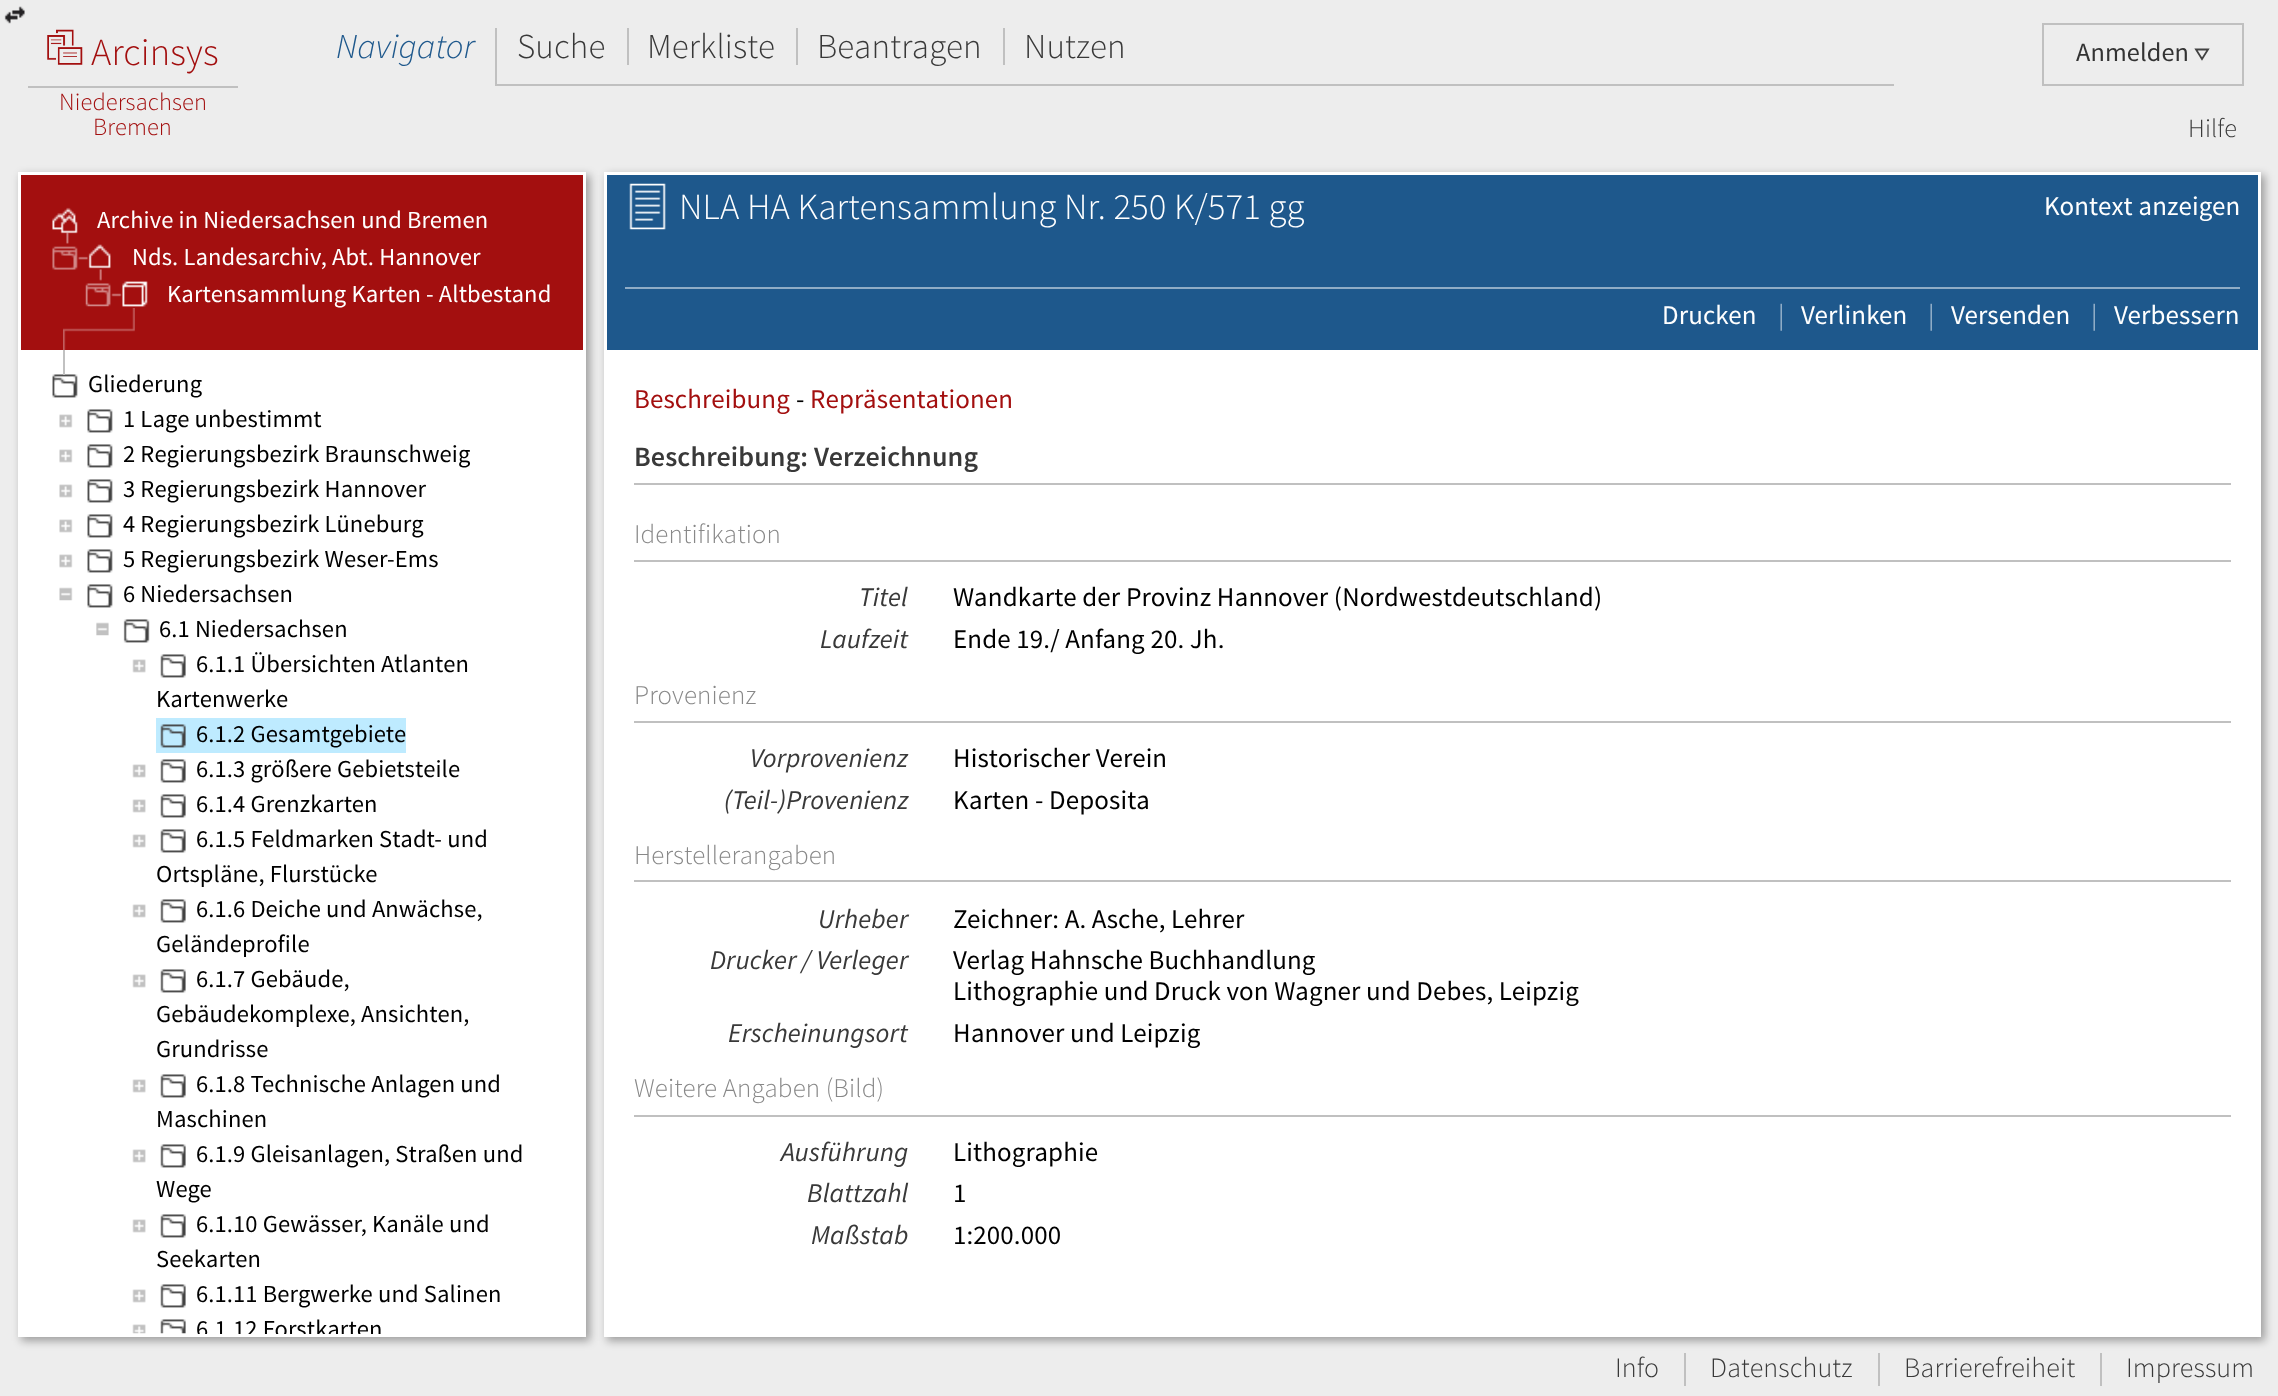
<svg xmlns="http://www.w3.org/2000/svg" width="2278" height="1396">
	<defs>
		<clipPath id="clip1"><rect x="21" y="350" width="562" height="984" /></clipPath>
	</defs>
	<rect width="100%" height="100%" fill="#EDEDED" />
	<image x="4" y="6" width="21" height="18" href="assets/img1.png" />
	<image x="47" y="29" width="36" height="36" href="assets/img2.png" />
	<text x="91" y="65" font-family="Source Sans Pro" font-size="38.5" font-weight="300" letter-spacing="0.13" fill="#A30F0F">Arcinsys</text>
	<rect x="28" y="86" width="210" height="2" fill="#C0C0C0" />
	<g font-family="Source Sans Pro" font-size="24.5" font-weight="300" letter-spacing="0.13" fill="#A30F0F">
		<text x="59" y="110">Niedersachsen</text>
		<text x="93" y="135">Bremen</text>
	</g>
	<rect x="495" y="84" width="1399" height="2" fill="#C0C0C0" />
	<text x="336" y="58" font-family="Source Sans Pro" font-size="35" font-weight="300" font-style="italic" letter-spacing="0.13" fill="#1E588C">Navigator</text>
	<rect x="495" y="28" width="2" height="56" fill="#C0C0C0" />
	<text x="517" y="58" font-family="Source Sans Pro" font-size="35" font-weight="300" letter-spacing="0.13" fill="#393939">Suche</text>
	<rect x="627" y="28" width="2" height="37" fill="#C0C0C0" />
	<text x="647" y="58" font-family="Source Sans Pro" font-size="35" font-weight="300" letter-spacing="0.13" fill="#393939">Merkliste</text>
	<rect x="796" y="28" width="2" height="37" fill="#C0C0C0" />
	<text x="817" y="58" font-family="Source Sans Pro" font-size="35" font-weight="300" letter-spacing="0.13" fill="#393939">Beantragen</text>
	<rect x="1003" y="28" width="2" height="37" fill="#C0C0C0" />
	<text x="1024" y="58" font-family="Source Sans Pro" font-size="35" font-weight="300" letter-spacing="0.13" fill="#393939">Nutzen</text>
	<rect x="2043" y="24" width="200" height="61" fill="none" stroke="#C0C0C0" stroke-width="2" />
	<text x="2076" y="61" font-family="Source Sans Pro" font-size="26.25" letter-spacing="0.13" fill="#333333">Anmelden</text>
	<path d="M2196 49.5H2208L2202 59Z" fill="none" stroke="#424242" stroke-width="1.8" />
	<text x="2188" y="137" font-family="Source Sans Pro" font-size="26.25" font-weight="300" letter-spacing="0.13" fill="#393939">Hilfe</text>
	<rect x="21" y="175" width="569" height="1166" fill="#000000" fill-opacity="0.33" filter="blur(4.5px)" />
	<rect x="18" y="172" width="568" height="1165" fill="#FFFFFF" />
	<rect x="21" y="175" width="562" height="175" fill="#A30F0F" />
	<image x="52" y="207" width="26" height="27" href="assets/img3.png" />
	<text x="97" y="228" font-family="Source Sans Pro" font-size="24.5" letter-spacing="0.13" fill="#FFFFFF">Archive in Niedersachsen und Bremen</text>
	<image x="52" y="232" width="36" height="38" href="assets/img4.png" />
	<image x="88" y="244" width="23" height="25" href="assets/img5.png" />
	<text x="132" y="265" font-family="Source Sans Pro" font-size="24.5" letter-spacing="0.13" fill="#FFFFFF">Nds. Landesarchiv, Abt. Hannover</text>
	<image x="85" y="269" width="37" height="38" href="assets/img6.png" />
	<image x="122" y="281" width="26" height="26" href="assets/img7.png" />
	<text x="167" y="302" font-family="Source Sans Pro" font-size="24.5" letter-spacing="0.13" fill="#FFFFFF">Kartensammlung Karten - Altbestand</text>
	<image x="63" y="308" width="72" height="42" href="assets/img8.png" />
	<image x="52" y="374" width="26" height="24" href="assets/img9.png" />
	<rect x="63" y="350" width="2" height="25" fill="#C1C1C1" />
	<text x="88" y="392" font-family="Source Sans Pro" font-size="24.5" letter-spacing="0.13" fill="#000000">Gliederung</text>
	<image x="59" y="414" width="14" height="14" href="assets/img10.png" />
	<image x="87" y="409" width="26" height="24" href="assets/img9.png" />
	<text x="123" y="427" font-family="Source Sans Pro" font-size="24.5" letter-spacing="0.13" fill="#000000">1 Lage unbestimmt</text>
	<image x="59" y="449" width="14" height="14" href="assets/img10.png" />
	<image x="87" y="444" width="26" height="24" href="assets/img9.png" />
	<text x="123" y="462" font-family="Source Sans Pro" font-size="24.5" letter-spacing="0.13" fill="#000000">2 Regierungsbezirk Braunschweig</text>
	<image x="59" y="484" width="14" height="14" href="assets/img10.png" />
	<image x="87" y="479" width="26" height="24" href="assets/img9.png" />
	<text x="123" y="497" font-family="Source Sans Pro" font-size="24.5" letter-spacing="0.13" fill="#000000">3 Regierungsbezirk Hannover</text>
	<image x="59" y="519" width="14" height="14" href="assets/img10.png" />
	<image x="87" y="514" width="26" height="24" href="assets/img9.png" />
	<text x="123" y="532" font-family="Source Sans Pro" font-size="24.5" letter-spacing="0.13" fill="#000000">4 Regierungsbezirk Lüneburg</text>
	<image x="59" y="554" width="14" height="14" href="assets/img10.png" />
	<image x="87" y="549" width="26" height="24" href="assets/img9.png" />
	<text x="123" y="567" font-family="Source Sans Pro" font-size="24.5" letter-spacing="0.13" fill="#000000">5 Regierungsbezirk Weser-Ems</text>
	<image x="59" y="587" width="14" height="14" href="assets/img11.png" />
	<image x="87" y="584" width="26" height="24" href="assets/img9.png" />
	<text x="123" y="602" font-family="Source Sans Pro" font-size="24.5" letter-spacing="0.13" fill="#000000">6 Niedersachsen</text>
	<image x="96" y="622" width="13" height="14" href="assets/img12.png" />
	<image x="123" y="619" width="27" height="24" href="assets/img13.png" />
	<text x="159" y="637" font-family="Source Sans Pro" font-size="24.5" letter-spacing="0.13" fill="#000000">6.1 Niedersachsen</text>
	<image x="132" y="659" width="14" height="14" href="assets/img14.png" />
	<image x="160" y="654" width="26" height="24" href="assets/img15.png" />
	<g font-family="Source Sans Pro" font-size="24.5" letter-spacing="0.13" fill="#000000">
		<text x="196" y="672">6.1.1 Übersichten Atlanten</text>
		<text x="156" y="707">Kartenwerke</text>
	</g>
	<rect x="156" y="718" width="250" height="35" fill="#BEEBFF" />
	<image x="160" y="724" width="26" height="24" href="assets/img16.png" />
	<text x="196" y="742" font-family="Source Sans Pro" font-size="24.5" letter-spacing="0.13" fill="#000000">6.1.2 Gesamtgebiete</text>
	<image x="132" y="764" width="14" height="14" href="assets/img14.png" />
	<image x="160" y="759" width="26" height="24" href="assets/img15.png" />
	<text x="196" y="777" font-family="Source Sans Pro" font-size="24.5" letter-spacing="0.13" fill="#000000">6.1.3 größere Gebietsteile</text>
	<image x="132" y="799" width="14" height="14" href="assets/img14.png" />
	<image x="160" y="794" width="26" height="24" href="assets/img15.png" />
	<text x="196" y="812" font-family="Source Sans Pro" font-size="24.5" letter-spacing="0.13" fill="#000000">6.1.4 Grenzkarten</text>
	<image x="132" y="834" width="14" height="14" href="assets/img14.png" />
	<image x="160" y="829" width="26" height="24" href="assets/img15.png" />
	<g font-family="Source Sans Pro" font-size="24.5" letter-spacing="0.13" fill="#000000">
		<text x="196" y="847">6.1.5 Feldmarken Stadt- und</text>
		<text x="156" y="882">Ortspläne, Flurstücke</text>
	</g>
	<image x="132" y="904" width="14" height="14" href="assets/img14.png" />
	<image x="160" y="899" width="26" height="24" href="assets/img15.png" />
	<g font-family="Source Sans Pro" font-size="24.5" letter-spacing="0.13" fill="#000000">
		<text x="196" y="917">6.1.6 Deiche und Anwächse,</text>
		<text x="156" y="952">Geländeprofile</text>
	</g>
	<image x="132" y="974" width="14" height="14" href="assets/img14.png" />
	<image x="160" y="969" width="26" height="24" href="assets/img15.png" />
	<g font-family="Source Sans Pro" font-size="24.5" letter-spacing="0.13" fill="#000000">
		<text x="196" y="987">6.1.7 Gebäude,</text>
		<text x="156" y="1022">Gebäudekomplexe, Ansichten,</text>
		<text x="156" y="1057">Grundrisse</text>
	</g>
	<image x="132" y="1079" width="14" height="14" href="assets/img14.png" />
	<image x="160" y="1074" width="26" height="24" href="assets/img15.png" />
	<g font-family="Source Sans Pro" font-size="24.5" letter-spacing="0.13" fill="#000000">
		<text x="196" y="1092">6.1.8 Technische Anlagen und</text>
		<text x="156" y="1127">Maschinen</text>
	</g>
	<image x="132" y="1149" width="14" height="14" href="assets/img14.png" />
	<image x="160" y="1144" width="26" height="24" href="assets/img15.png" />
	<g font-family="Source Sans Pro" font-size="24.5" letter-spacing="0.13" fill="#000000">
		<text x="196" y="1162">6.1.9 Gleisanlagen, Straßen und</text>
		<text x="156" y="1197">Wege</text>
	</g>
	<image x="132" y="1219" width="14" height="14" href="assets/img14.png" />
	<image x="160" y="1214" width="26" height="24" href="assets/img15.png" />
	<g font-family="Source Sans Pro" font-size="24.5" letter-spacing="0.13" fill="#000000">
		<text x="196" y="1232">6.1.10 Gewässer, Kanäle und</text>
		<text x="156" y="1267">Seekarten</text>
	</g>
	<image x="132" y="1289" width="14" height="14" href="assets/img14.png" />
	<image x="160" y="1284" width="26" height="24" href="assets/img15.png" />
	<text x="196" y="1302" font-family="Source Sans Pro" font-size="24.5" letter-spacing="0.13" fill="#000000">6.1.11 Bergwerke und Salinen</text>
	<image x="132" y="1324" width="14" height="10" href="assets/img17.png" />
	<image x="160" y="1319" width="26" height="15" href="assets/img18.png" />
	<g clip-path="url(#clip1)">
		<text x="196" y="1337" font-family="Source Sans Pro" font-size="24.5" letter-spacing="0.13" fill="#000000">6.1.12 Forstkarten</text>
	</g>
	<rect x="607" y="175" width="1658" height="1166" fill="#000000" fill-opacity="0.33" filter="blur(4.5px)" />
	<rect x="604" y="172" width="1657" height="1165" fill="#FFFFFF" />
	<rect x="607" y="175" width="1651" height="175" fill="#1E588C" />
	<image x="629" y="183" width="37" height="47" href="assets/img19.png" />
	<text x="679" y="219" font-family="Source Sans Pro" font-size="36.75" font-weight="300" letter-spacing="0.13" fill="#FFFFFF">NLA HA Kartensammlung Nr. 250 K/571 gg</text>
	<text x="2044" y="215" font-family="Source Sans Pro" font-size="26.95" letter-spacing="0.13" fill="#FFFFFF">Kontext anzeigen</text>
	<rect x="625" y="287" width="1615" height="2" fill="#8FACC6" />
	<text x="1662" y="324" font-family="Source Sans Pro" font-size="26.95" letter-spacing="0.13" fill="#FFFFFF">Drucken</text>
	<text x="1778" y="324" font-family="Source Sans Pro" font-size="26.95" letter-spacing="0.13" fill="#8FACC6">|</text>
	<text x="1801" y="324" font-family="Source Sans Pro" font-size="26.95" letter-spacing="0.13" fill="#FFFFFF">Verlinken</text>
	<text x="1928" y="324" font-family="Source Sans Pro" font-size="26.95" letter-spacing="0.13" fill="#8FACC6">|</text>
	<text x="1951" y="324" font-family="Source Sans Pro" font-size="26.95" letter-spacing="0.13" fill="#FFFFFF">Versenden</text>
	<text x="2091" y="324" font-family="Source Sans Pro" font-size="26.95" letter-spacing="0.13" fill="#8FACC6">|</text>
	<text x="2114" y="324" font-family="Source Sans Pro" font-size="26.95" letter-spacing="0.13" fill="#FFFFFF">Verbessern</text>
	<text x="634" y="408" font-family="Source Sans Pro" font-size="26.95" letter-spacing="0.13" fill="#A30F0F">Beschreibung</text>
	<text x="796" y="408" font-family="Source Sans Pro" font-size="26.95" letter-spacing="0.13" fill="#000000">-</text>
	<text x="810" y="408" font-family="Source Sans Pro" font-size="26.95" letter-spacing="0.13" fill="#A30F0F">Repräsentationen</text>
	<rect x="634" y="483" width="1597" height="2" fill="#C0C0C0" />
	<text x="634" y="466" font-family="Source Sans Pro" font-size="28" font-weight="600" letter-spacing="0.13" fill="#393939">Beschreibung: Verzeichnung</text>
	<rect x="634" y="560" width="1597" height="2" fill="#C0C0C0" />
	<text x="634" y="543" font-family="Source Sans Pro" font-size="26.95" font-weight="300" letter-spacing="0.13" fill="#888888">Identifikation</text>
	<text x="859" y="606" font-family="Source Sans Pro" font-size="26.95" font-style="italic" letter-spacing="0.13" fill="#393939">Titel</text>
	<text x="953" y="606" font-family="Source Sans Pro" font-size="26.95" letter-spacing="0.13" fill="#000000">Wandkarte der Provinz Hannover (Nordwestdeutschland)</text>
	<text x="820" y="648" font-family="Source Sans Pro" font-size="26.95" font-style="italic" letter-spacing="0.13" fill="#393939">Laufzeit</text>
	<text x="953" y="648" font-family="Source Sans Pro" font-size="26.95" letter-spacing="0.13" fill="#000000">Ende 19./ Anfang 20. Jh.</text>
	<rect x="634" y="721" width="1597" height="2" fill="#C0C0C0" />
	<text x="634" y="704" font-family="Source Sans Pro" font-size="26.95" font-weight="300" letter-spacing="0.13" fill="#888888">Provenienz</text>
	<text x="750" y="767" font-family="Source Sans Pro" font-size="26.95" font-style="italic" letter-spacing="0.13" fill="#393939">Vorprovenienz</text>
	<text x="953" y="767" font-family="Source Sans Pro" font-size="26.95" letter-spacing="0.13" fill="#000000">Historischer Verein</text>
	<text x="724" y="809" font-family="Source Sans Pro" font-size="26.95" font-style="italic" letter-spacing="0.13" fill="#393939">(Teil-)Provenienz</text>
	<text x="953" y="809" font-family="Source Sans Pro" font-size="26.95" letter-spacing="0.13" fill="#000000">Karten - Deposita</text>
	<rect x="634" y="880" width="1597" height="2" fill="#C0C0C0" />
	<text x="634" y="864" font-family="Source Sans Pro" font-size="26.95" font-weight="300" letter-spacing="0.13" fill="#888888">Herstellerangaben</text>
	<text x="818" y="928" font-family="Source Sans Pro" font-size="26.95" font-style="italic" letter-spacing="0.13" fill="#393939">Urheber</text>
	<text x="953" y="928" font-family="Source Sans Pro" font-size="26.95" letter-spacing="0.13" fill="#000000">Zeichner: A. Asche, Lehrer</text>
	<text x="710" y="969" font-family="Source Sans Pro" font-size="26.95" font-style="italic" letter-spacing="0.13" fill="#393939">Drucker / Verleger</text>
	<g font-family="Source Sans Pro" font-size="26.95" letter-spacing="0.13" fill="#000000">
		<text x="953" y="969">Verlag Hahnsche Buchhandlung</text>
		<text x="953" y="1000">Lithographie und Druck von Wagner und Debes, Leipzig</text>
	</g>
	<text x="728" y="1042" font-family="Source Sans Pro" font-size="26.95" font-style="italic" letter-spacing="0.13" fill="#393939">Erscheinungsort</text>
	<text x="953" y="1042" font-family="Source Sans Pro" font-size="26.95" letter-spacing="0.13" fill="#000000">Hannover und Leipzig</text>
	<rect x="634" y="1115" width="1597" height="2" fill="#C0C0C0" />
	<text x="634" y="1097" font-family="Source Sans Pro" font-size="26.95" font-weight="300" letter-spacing="0.13" fill="#888888">Weitere Angaben (Bild)</text>
	<text x="781" y="1161" font-family="Source Sans Pro" font-size="26.95" font-style="italic" letter-spacing="0.13" fill="#393939">Ausführung</text>
	<text x="953" y="1161" font-family="Source Sans Pro" font-size="26.95" letter-spacing="0.13" fill="#000000">Lithographie</text>
	<text x="807" y="1202" font-family="Source Sans Pro" font-size="26.95" font-style="italic" letter-spacing="0.13" fill="#393939">Blattzahl</text>
	<text x="953" y="1202" font-family="Source Sans Pro" font-size="26.95" letter-spacing="0.13" fill="#000000">1</text>
	<text x="811" y="1244" font-family="Source Sans Pro" font-size="26.95" font-style="italic" letter-spacing="0.13" fill="#393939">Maßstab</text>
	<text x="953" y="1244" font-family="Source Sans Pro" font-size="26.95" letter-spacing="0.13" fill="#000000">1:200.000</text>
	<text x="1615" y="1377" font-family="Source Sans Pro" font-size="28" font-weight="300" letter-spacing="0.13" fill="#393939">Info</text>
	<rect x="1684" y="1353" width="2" height="33" fill="#C0C0C0" />
	<text x="1710" y="1377" font-family="Source Sans Pro" font-size="28" font-weight="300" letter-spacing="0.13" fill="#393939">Datenschutz</text>
	<rect x="1878" y="1353" width="2" height="33" fill="#C0C0C0" />
	<text x="1904" y="1377" font-family="Source Sans Pro" font-size="28" font-weight="300" letter-spacing="0.13" fill="#393939">Barrierefreiheit</text>
	<rect x="2100" y="1353" width="2" height="33" fill="#C0C0C0" />
	<text x="2126" y="1377" font-family="Source Sans Pro" font-size="28" font-weight="300" letter-spacing="0.13" fill="#393939">Impressum</text>
</svg>
